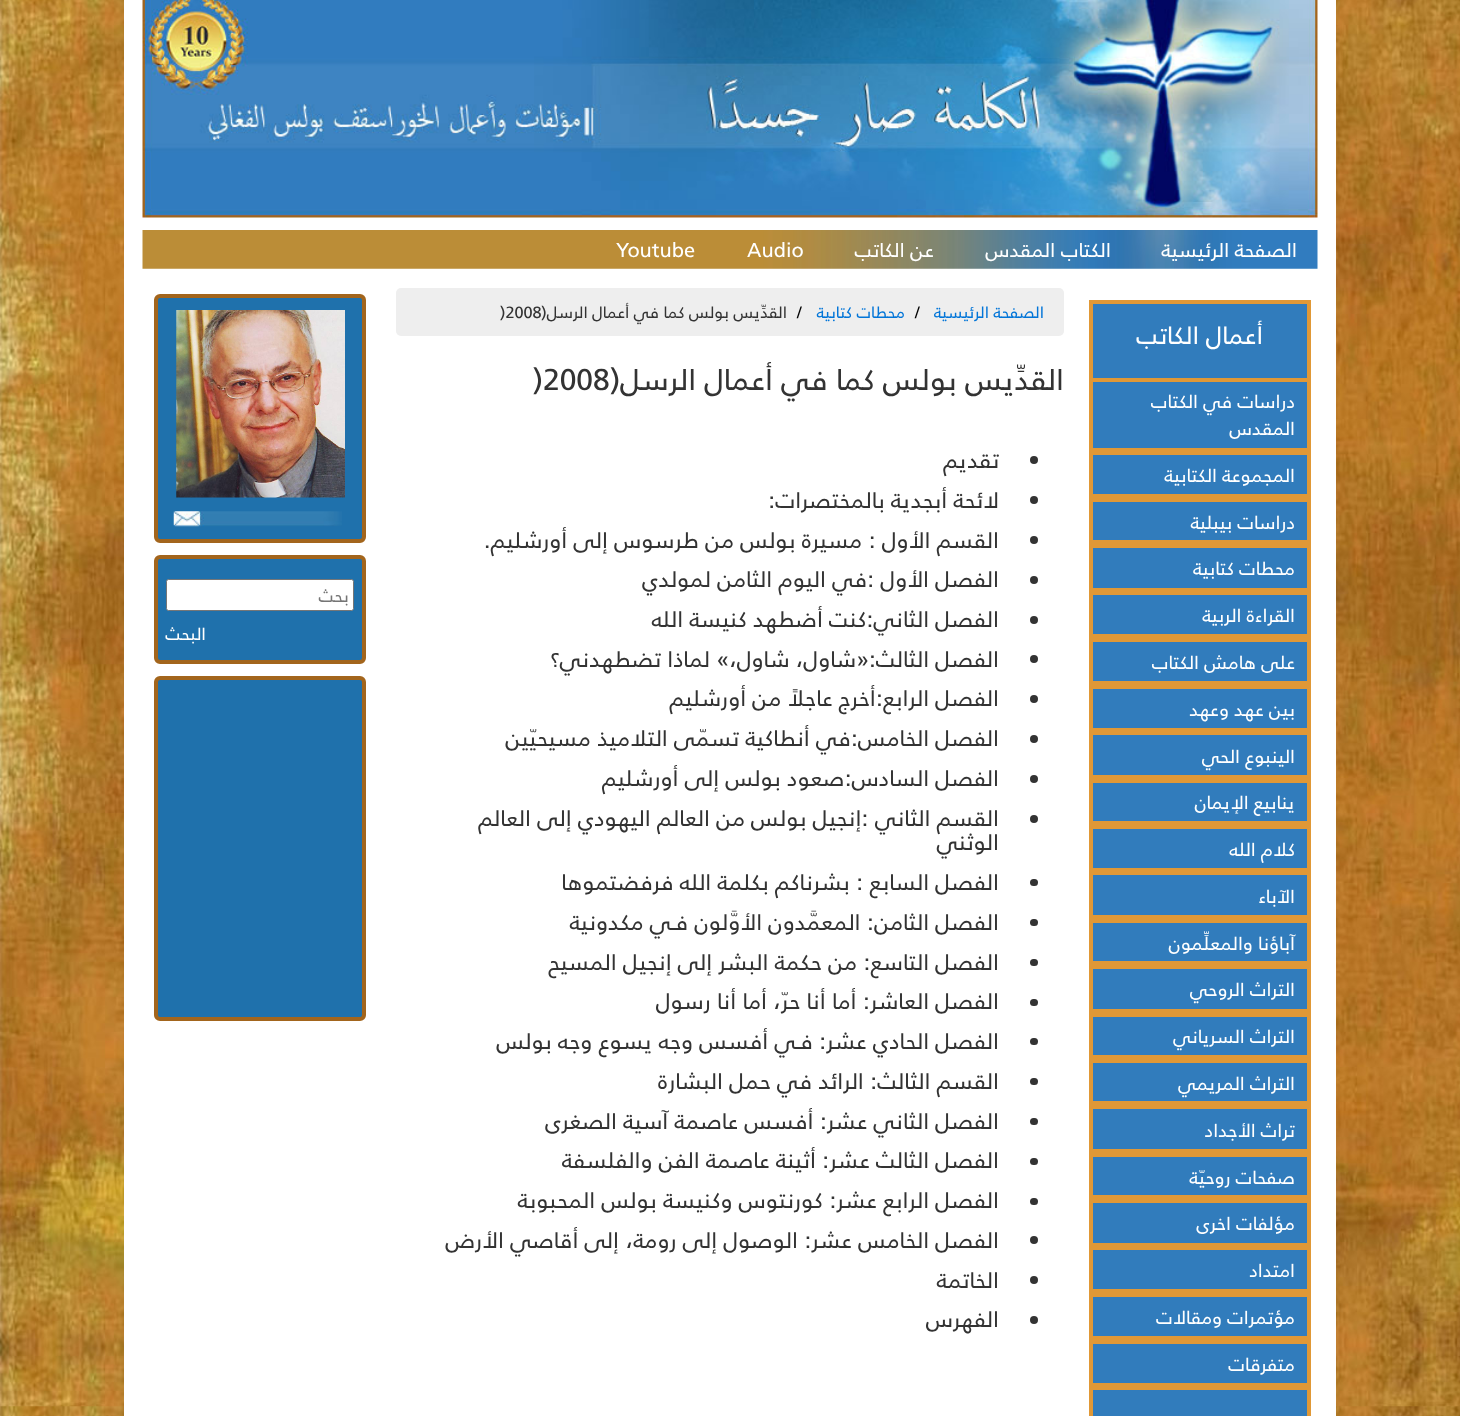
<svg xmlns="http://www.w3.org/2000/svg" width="1460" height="1416">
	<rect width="100%" height="100%" fill="#FFFFFF" />
	<image x="0" y="0" width="1460" height="1416" href="assets/img1.png" />
	<rect x="124" y="0" width="1212" height="1416" fill="#FFFFFF" />
	<image x="142" y="0" width="1176" height="218" href="assets/img2.png" />
	<image x="142" y="230" width="1176" height="39" href="assets/img3.png" />
	<g font-family="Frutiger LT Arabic" font-size="20" direction="rtl" fill="#FFFFFF">
		<text x="1297" y="257">الصفحة الرئيسية</text>
		<text x="1111" y="257">الكتاب المقدس</text>
		<text x="934" y="257">عن الكاتب</text>
	</g>
	<g font-family="Frutiger LT Arabic" font-size="20" fill="#FFFFFF">
		<text x="747" y="257">Audio</text>
		<text x="616" y="257">Youtube</text>
	</g>
	<rect x="1091" y="302" width="218" height="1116" fill="#317CBC" stroke="#E09836" stroke-width="4" />
	<text x="1263" y="344" font-family="Frutiger LT Arabic" font-size="25" direction="rtl" fill="#FFFFFF">أعمال الكاتب</text>
	<rect x="1093" y="378" width="215" height="4" fill="#E09836" />
	<rect x="1093" y="448" width="215" height="7" fill="#E09836" />
	<g font-family="Frutiger LT Arabic" font-size="18.75" direction="rtl" fill="#FFFFFF">
		<text x="1295" y="408">دراسات في الكتاب</text>
		<text x="1295" y="435">المقدس</text>
	</g>
	<rect x="1093" y="494" width="215" height="8" fill="#E09836" />
	<text x="1295" y="482" font-family="Frutiger LT Arabic" font-size="18.75" direction="rtl" fill="#FFFFFF">المجموعة الكتابية</text>
	<rect x="1093" y="540" width="215" height="8" fill="#E09836" />
	<text x="1295" y="529" font-family="Frutiger LT Arabic" font-size="18.75" direction="rtl" fill="#FFFFFF">دراسات بيبلية</text>
	<rect x="1093" y="588" width="215" height="7" fill="#E09836" />
	<text x="1295" y="575" font-family="Frutiger LT Arabic" font-size="18.75" direction="rtl" fill="#FFFFFF">محطات كتابية</text>
	<rect x="1093" y="634" width="215" height="8" fill="#E09836" />
	<text x="1295" y="622" font-family="Frutiger LT Arabic" font-size="18.75" direction="rtl" fill="#FFFFFF">القراءة الربية</text>
	<rect x="1093" y="681" width="215" height="8" fill="#E09836" />
	<text x="1295" y="669" font-family="Frutiger LT Arabic" font-size="18.75" direction="rtl" fill="#FFFFFF">على هامش الكتاب</text>
	<rect x="1093" y="728" width="215" height="7" fill="#E09836" />
	<text x="1295" y="716" font-family="Frutiger LT Arabic" font-size="18.75" direction="rtl" fill="#FFFFFF">بين عهد وعهد</text>
	<rect x="1093" y="775" width="215" height="8" fill="#E09836" />
	<text x="1295" y="763" font-family="Frutiger LT Arabic" font-size="18.75" direction="rtl" fill="#FFFFFF">الينبوع الحي</text>
	<rect x="1093" y="821" width="215" height="8" fill="#E09836" />
	<text x="1295" y="809" font-family="Frutiger LT Arabic" font-size="18.75" direction="rtl" fill="#FFFFFF">ينابيع الإيمان</text>
	<rect x="1093" y="868" width="215" height="7" fill="#E09836" />
	<text x="1295" y="856" font-family="Frutiger LT Arabic" font-size="18.75" direction="rtl" fill="#FFFFFF">كلام الله</text>
	<rect x="1093" y="915" width="215" height="8" fill="#E09836" />
	<text x="1295" y="903" font-family="Frutiger LT Arabic" font-size="18.75" direction="rtl" fill="#FFFFFF">الآباء</text>
	<rect x="1093" y="961" width="215" height="8" fill="#E09836" />
	<text x="1295" y="950" font-family="Frutiger LT Arabic" font-size="18.75" direction="rtl" fill="#FFFFFF">آباؤنا والمعلِّمون</text>
	<rect x="1093" y="1009" width="215" height="8" fill="#E09836" />
	<text x="1295" y="996" font-family="Frutiger LT Arabic" font-size="18.75" direction="rtl" fill="#FFFFFF">التراث الروحي</text>
	<rect x="1093" y="1055" width="215" height="8" fill="#E09836" />
	<text x="1295" y="1043" font-family="Frutiger LT Arabic" font-size="18.75" direction="rtl" fill="#FFFFFF">التراث السرياني</text>
	<rect x="1093" y="1101" width="215" height="8" fill="#E09836" />
	<text x="1295" y="1090" font-family="Frutiger LT Arabic" font-size="18.75" direction="rtl" fill="#FFFFFF">التراث المريمي</text>
	<rect x="1093" y="1149" width="215" height="8" fill="#E09836" />
	<text x="1295" y="1137" font-family="Frutiger LT Arabic" font-size="18.75" direction="rtl" fill="#FFFFFF">تراث الأجداد</text>
	<rect x="1093" y="1195" width="215" height="8" fill="#E09836" />
	<text x="1295" y="1184" font-family="Frutiger LT Arabic" font-size="18.75" direction="rtl" fill="#FFFFFF">صفحات روحيّة</text>
	<rect x="1093" y="1243" width="215" height="7" fill="#E09836" />
	<text x="1295" y="1230" font-family="Frutiger LT Arabic" font-size="18.75" direction="rtl" fill="#FFFFFF">مؤلفات اخرى</text>
	<rect x="1093" y="1289" width="215" height="8" fill="#E09836" />
	<text x="1295" y="1277" font-family="Frutiger LT Arabic" font-size="18.75" direction="rtl" fill="#FFFFFF">امتداد</text>
	<rect x="1093" y="1336" width="215" height="8" fill="#E09836" />
	<text x="1295" y="1324" font-family="Frutiger LT Arabic" font-size="18.75" direction="rtl" fill="#FFFFFF">مؤتمرات ومقالات</text>
	<rect x="1093" y="1383" width="215" height="7" fill="#E09836" />
	<text x="1295" y="1371" font-family="Frutiger LT Arabic" font-size="18.75" direction="rtl" fill="#FFFFFF">متفرقات</text>
	<rect x="396" y="288" width="668" height="48" rx="5" fill="#EEEEEE" />
	<text x="1044" y="318" font-family="Frutiger LT Arabic" font-size="16.25" direction="rtl" fill="#0275D8">الصفحة الرئيسية</text>
	<text x="915" y="318" font-family="Frutiger LT Arabic" font-size="16.25" fill="#000000">/</text>
	<text x="905" y="318" font-family="Frutiger LT Arabic" font-size="16.25" direction="rtl" fill="#0275D8">محطات كتابية</text>
	<text x="797" y="318" font-family="Frutiger LT Arabic" font-size="16.25" fill="#000000">/</text>
	<text x="500" y="318" font-family="Frutiger LT Arabic" font-size="16.25" fill="#333333">)2008</text>
	<text x="787" y="318" font-family="Frutiger LT Arabic" font-size="16.25" direction="rtl" fill="#333333">القدِّيس بولس كما في أعمال الرسل(</text>
	<text x="1064" y="390" font-family="Frutiger LT Arabic" font-size="30" direction="rtl" fill="#333333">القدِّيس بولس كما في أعمال الرسل(</text>
	<text x="533" y="390" font-family="Frutiger LT Arabic" font-size="30" fill="#333333">)2008</text>
	<circle cx="1034" cy="460" r="4" fill="#333333" />
	<text x="999" y="468" font-family="Frutiger LT Arabic" font-size="22.5" direction="rtl" fill="#333333">تقديم</text>
	<circle cx="1034" cy="500" r="4" fill="#333333" />
	<text x="999" y="508" font-family="Frutiger LT Arabic" font-size="22.5" direction="rtl" fill="#333333">لائحة أبجدية بالمختصرات:</text>
	<circle cx="1034" cy="540" r="4" fill="#333333" />
	<text x="999" y="548" font-family="Frutiger LT Arabic" font-size="22.5" direction="rtl" fill="#333333">القسم الأول : مسيرة بولس من طرسوس إلى أورشليم.</text>
	<circle cx="1034" cy="580" r="4" fill="#333333" />
	<text x="999" y="587" font-family="Frutiger LT Arabic" font-size="22.5" direction="rtl" fill="#333333">الفصل الأول :في اليوم الثامن لمولدي</text>
	<circle cx="1034" cy="620" r="4" fill="#333333" />
	<text x="999" y="627" font-family="Frutiger LT Arabic" font-size="22.5" direction="rtl" fill="#333333">الفصل الثاني:كنت أضطهد كنيسة الله</text>
	<circle cx="1034" cy="659" r="4" fill="#333333" />
	<g font-family="Frutiger LT Arabic" font-size="22.5" direction="rtl" fill="#333333">
		<text x="999" y="667">الفصل الثالث:«شاول، شاول،»</text>
		<text x="710" y="667">لماذا تضطهدني؟</text>
	</g>
	<circle cx="1034" cy="699" r="4" fill="#333333" />
	<text x="999" y="706" font-family="Frutiger LT Arabic" font-size="22.5" direction="rtl" fill="#333333">الفصل الرابع:أخرج عاجلاً من أورشليم</text>
	<circle cx="1034" cy="739" r="4" fill="#333333" />
	<text x="999" y="746" font-family="Frutiger LT Arabic" font-size="22.5" direction="rtl" fill="#333333">الفصل الخامس:في أنطاكية تسمّى التلاميذ مسيحيّين</text>
	<circle cx="1034" cy="779" r="4" fill="#333333" />
	<text x="999" y="786" font-family="Frutiger LT Arabic" font-size="22.5" direction="rtl" fill="#333333">الفصل السادس:صعود بولس إلى أورشليم</text>
	<circle cx="1034" cy="819" r="4" fill="#333333" />
	<g font-family="Frutiger LT Arabic" font-size="22.5" direction="rtl" fill="#333333">
		<text x="999" y="826">القسم الثاني :إنجيل بولس</text>
		<text x="745" y="826">من العالم اليهودي إلى العالم</text>
		<text x="999" y="850">الوثني</text>
	</g>
	<rect x="1030" y="879" width="8" height="7" rx="3.5" fill="#333333" />
	<text x="999" y="890" font-family="Frutiger LT Arabic" font-size="22.5" direction="rtl" fill="#333333">الفصل السابع : بشرناكم بكلمة الله فرفضتموها</text>
	<rect x="1030" y="919" width="8" height="7" rx="3.5" fill="#333333" />
	<g font-family="Frutiger LT Arabic" font-size="22.5" direction="rtl" fill="#333333">
		<text x="999" y="930">الفصل الثامن: المعمَّدون الأوَّلون</text>
		<text x="688" y="930">فـي مكدونية</text>
	</g>
	<rect x="1030" y="959" width="8" height="7" rx="3.5" fill="#333333" />
	<text x="999" y="970" font-family="Frutiger LT Arabic" font-size="22.5" direction="rtl" fill="#333333">الفصل التاسع: من حكمة البشر إلى إنجيل المسيح</text>
	<rect x="1030" y="999" width="8" height="7" rx="3.5" fill="#333333" />
	<text x="999" y="1009" font-family="Frutiger LT Arabic" font-size="22.5" direction="rtl" fill="#333333">الفصل العاشر: أما أنا حرّ، أما أنا رسول</text>
	<rect x="1030" y="1038" width="8" height="7" rx="3.5" fill="#333333" />
	<text x="999" y="1049" font-family="Frutiger LT Arabic" font-size="22.5" direction="rtl" fill="#333333">الفصل الحادي عشر: فـي أفسس وجه يسوع وجه بولس</text>
	<rect x="1030" y="1078" width="8" height="7" rx="3.5" fill="#333333" />
	<text x="999" y="1089" font-family="Frutiger LT Arabic" font-size="22.5" direction="rtl" fill="#333333">القسم الثالث: الرائد في حمل البشارة</text>
	<rect x="1030" y="1118" width="8" height="7" rx="3.5" fill="#333333" />
	<text x="999" y="1129" font-family="Frutiger LT Arabic" font-size="22.5" direction="rtl" fill="#333333">الفصل الثاني عشر: أفسس عاصمة آسية الصغرى</text>
	<rect x="1030" y="1158" width="8" height="7" rx="3.5" fill="#333333" />
	<text x="999" y="1168" font-family="Frutiger LT Arabic" font-size="22.5" direction="rtl" fill="#333333">الفصل الثالث عشر: أثينة عاصمة الفن والفلسفة</text>
	<rect x="1030" y="1198" width="8" height="7" rx="3.5" fill="#333333" />
	<text x="999" y="1208" font-family="Frutiger LT Arabic" font-size="22.5" direction="rtl" fill="#333333">الفصل الرابع عشر: كورنتوس وكنيسة بولس المحبوبة</text>
	<circle cx="1034" cy="1240" r="4" fill="#333333" />
	<g font-family="Frutiger LT Arabic" font-size="22.5" direction="rtl" fill="#333333">
		<text x="999" y="1248">الفصل الخامس عشر:</text>
		<text x="798" y="1248">الوصول إلى رومة،</text>
		<text x="619" y="1248">إلى أقاصي الأرض</text>
	</g>
	<circle cx="1034" cy="1280" r="4" fill="#333333" />
	<text x="999" y="1288" font-family="Frutiger LT Arabic" font-size="22.5" direction="rtl" fill="#333333">الخاتمة</text>
	<circle cx="1034" cy="1320" r="4" fill="#333333" />
	<text x="999" y="1327" font-family="Frutiger LT Arabic" font-size="22.5" direction="rtl" fill="#333333">الفهرس</text>
	<rect x="156" y="296" width="208" height="245" rx="4" fill="#1F71AC" stroke="#A3651C" stroke-width="4" />
	<image x="176" y="310" width="169" height="188" href="assets/img4.png" />
	<image x="173" y="511" width="169" height="16" href="assets/img5.png" />
	<rect x="156" y="557" width="208" height="105" rx="4" fill="#1F71AC" stroke="#A3651C" stroke-width="4" />
	<rect x="166.5" y="579.5" width="187" height="31" rx="2" fill="#FFFFFF" stroke="#767676" />
	<text x="349" y="602" font-family="Frutiger LT Arabic" font-size="17.5" direction="rtl" fill="#757575">بحث</text>
	<text x="206" y="640" font-family="Frutiger LT Arabic" font-size="17.5" direction="rtl" fill="#FFFFFF">البحث</text>
	<rect x="156" y="678" width="208" height="341" rx="4" fill="#1F71AC" stroke="#A3651C" stroke-width="4" />
</svg>
